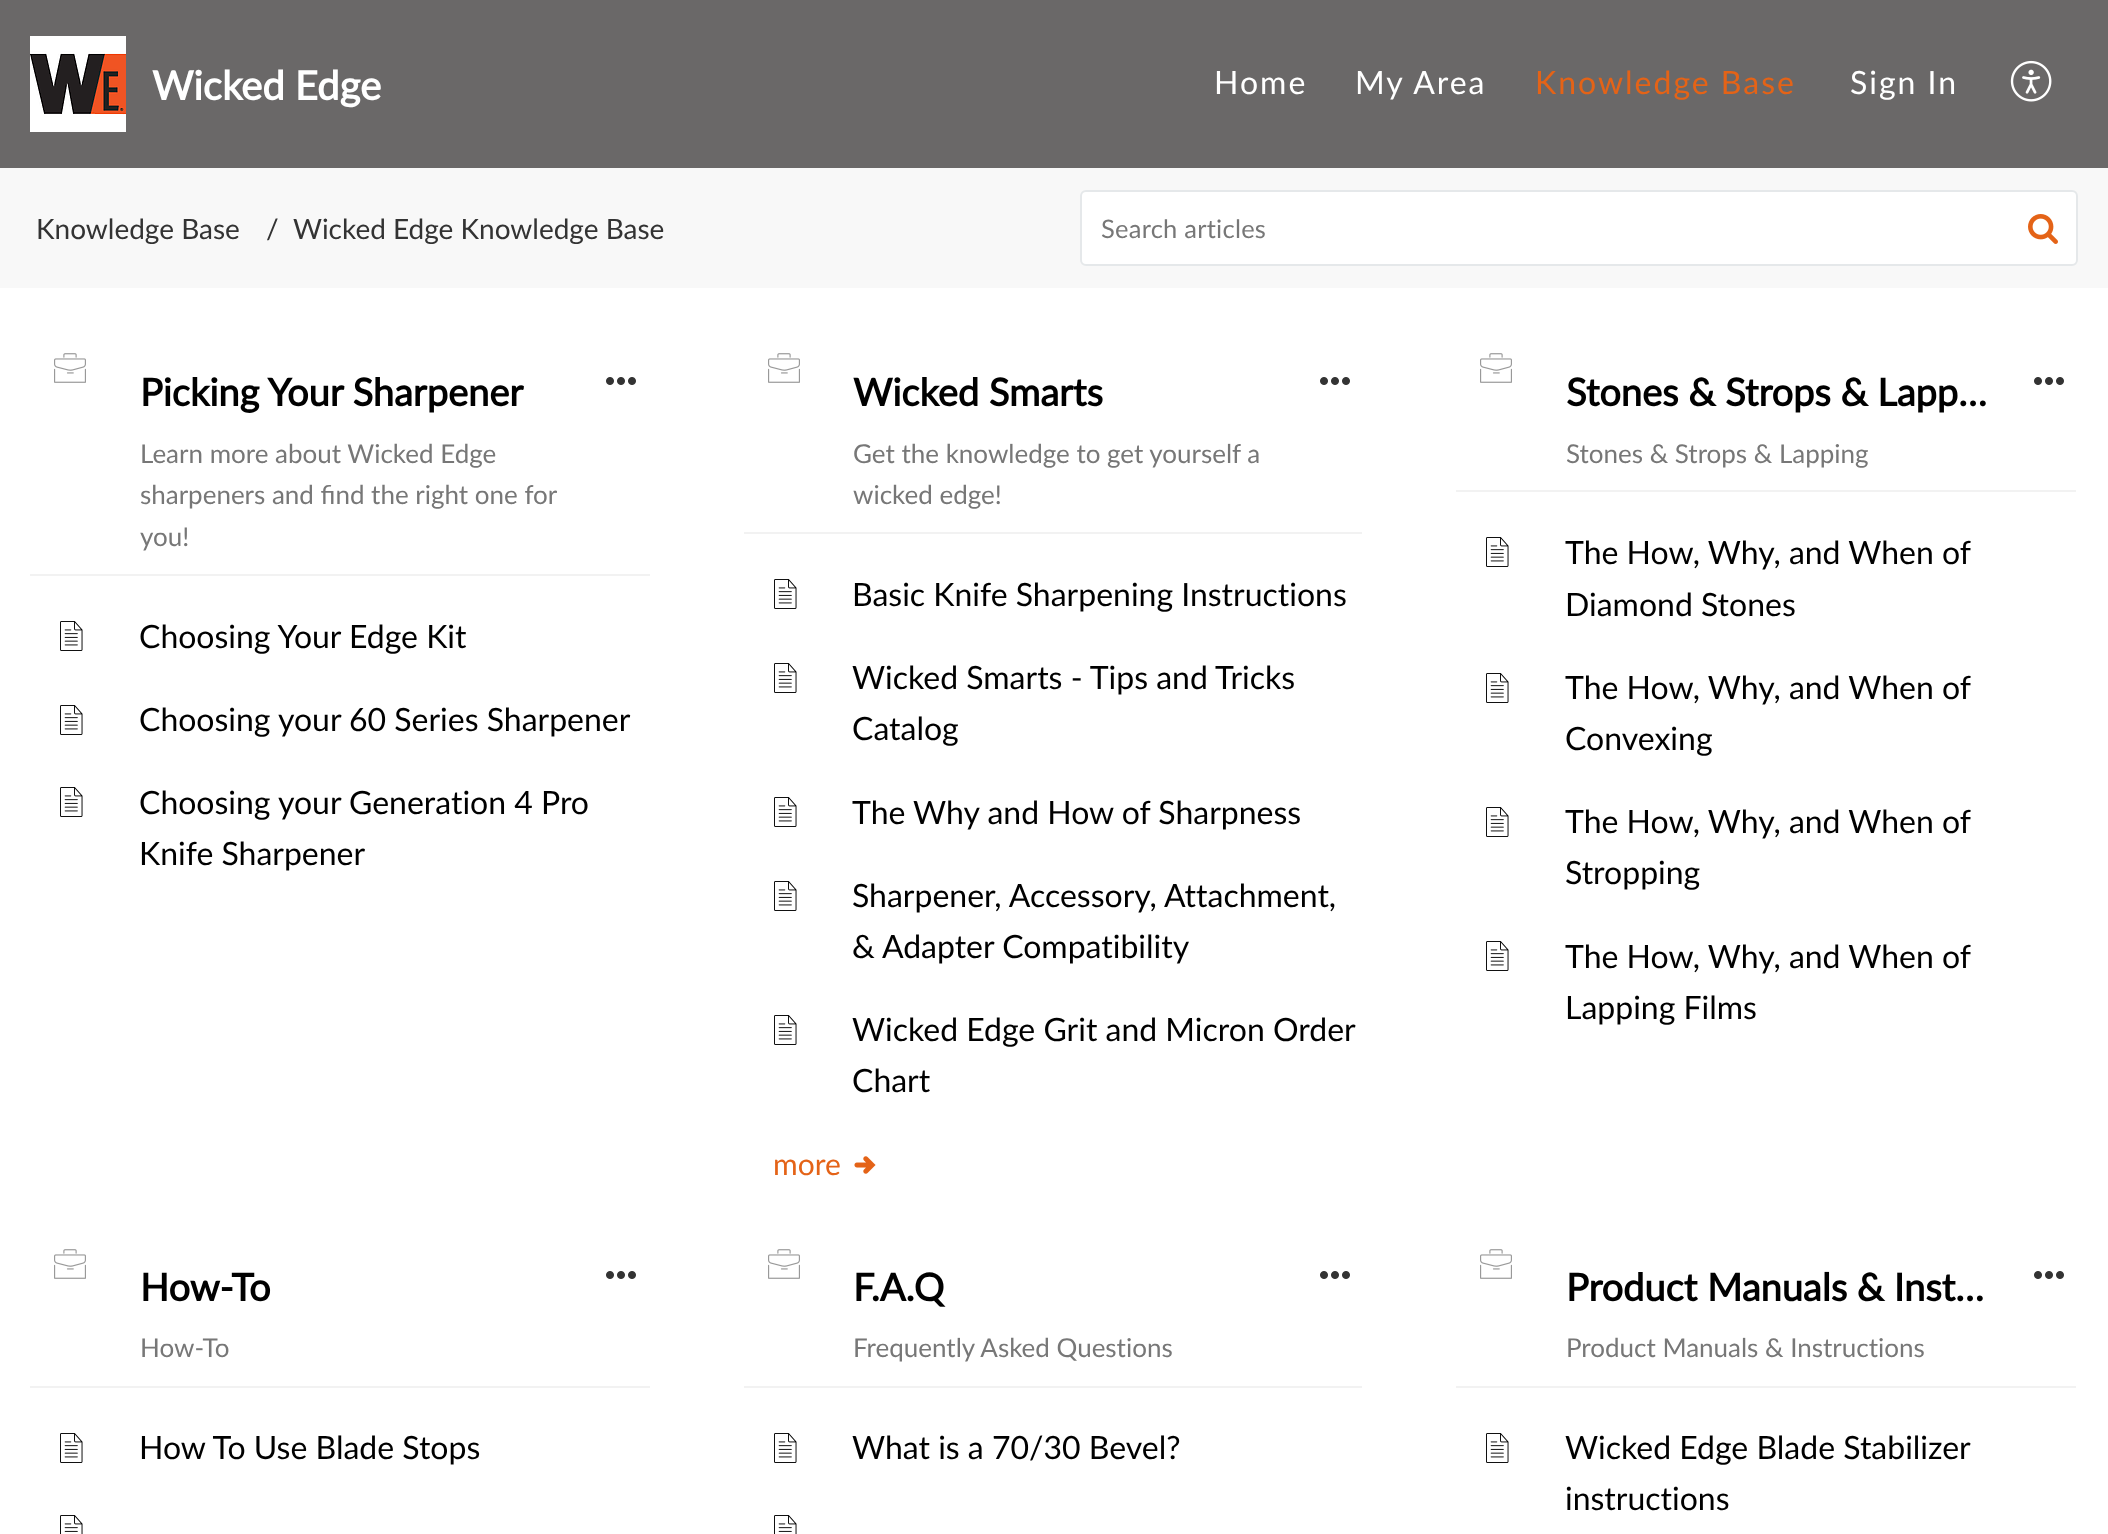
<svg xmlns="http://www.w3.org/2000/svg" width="2108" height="1534">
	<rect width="100%" height="100%" fill="#FFFFFF" />
	<rect x="0" y="0" width="2108" height="168" fill="#6A6868" />
	<image x="30" y="36" width="96" height="96" href="assets/img1.png" />
	<text x="152" y="100" font-family="Lato" font-size="40" font-weight="700" fill="#FFFFFF">Wicked Edge</text>
	<g font-family="Lato" font-size="32" letter-spacing="2" fill="#FFFFFF">
		<text x="1214" y="94">Home</text>
		<text x="1355" y="94">My Area</text>
	</g>
	<text x="1535" y="94" font-family="Lato" font-size="32" letter-spacing="2" fill="#E46317">Knowledge Base</text>
	<text x="1850" y="94" font-family="Lato" font-size="32" letter-spacing="2" fill="#FFFFFF">Sign In</text>
	<image x="2010" y="60" width="42" height="42" href="assets/img2.png" />
	<rect x="0" y="168" width="2108" height="120" fill="#F8F8F8" />
	<g font-family="Lato" font-size="28" fill="#333333">
		<text x="36" y="239">Knowledge Base</text>
		<text x="266" y="239">/</text>
		<text x="293" y="239">Wicked Edge Knowledge Base</text>
	</g>
	<rect x="1081" y="191" width="996" height="74" rx="5" fill="#FFFFFF" stroke="#E5E8EA" stroke-width="2" />
	<text x="1101" y="238" font-family="Lato" font-size="25.5" letter-spacing="0.25" fill="#777777">Search articles</text>
	<image x="2028" y="214" width="30" height="30" href="assets/img3.png" />
	<rect x="30" y="574" width="620" height="2" fill="#F2F2F2" />
	<image x="54" y="353" width="32" height="30" href="assets/img4.png" />
	<text x="140" y="406" font-family="Lato" font-size="38" font-weight="700" fill="#000000">Picking Your Sharpener</text>
	<g font-family="Lato" font-size="26" fill="#777777">
		<text x="140" y="463">Learn more about Wicked Edge</text>
		<text x="140" y="504">sharpeners and find the right one for</text>
		<text x="140" y="546">you!</text>
	</g>
	<image x="606" y="377" width="30" height="8" href="assets/img5.png" />
	<image x="60" y="621" width="23" height="30" href="assets/img6.png" />
	<text x="139" y="648" font-family="Lato" font-size="32" fill="#000000">Choosing Your Edge Kit</text>
	<image x="60" y="705" width="23" height="30" href="assets/img6.png" />
	<text x="139" y="731" font-family="Lato" font-size="32" fill="#000000">Choosing your 60 Series Sharpener</text>
	<image x="60" y="787" width="23" height="30" href="assets/img6.png" />
	<g font-family="Lato" font-size="32" fill="#000000">
		<text x="139" y="814">Choosing your Generation 4 Pro</text>
		<text x="139" y="865">Knife Sharpener</text>
	</g>
	<rect x="744" y="532" width="618" height="2" fill="#F2F2F2" />
	<image x="768" y="353" width="32" height="30" href="assets/img4.png" />
	<text x="853" y="406" font-family="Lato" font-size="38" font-weight="700" fill="#000000">Wicked Smarts</text>
	<g font-family="Lato" font-size="26" fill="#777777">
		<text x="853" y="463">Get the knowledge to get yourself a</text>
		<text x="853" y="504">wicked edge!</text>
	</g>
	<image x="1320" y="377" width="30" height="8" href="assets/img5.png" />
	<image x="774" y="579" width="23" height="30" href="assets/img6.png" />
	<text x="852" y="606" font-family="Lato" font-size="32" fill="#000000">Basic Knife Sharpening Instructions</text>
	<image x="774" y="663" width="23" height="30" href="assets/img6.png" />
	<g font-family="Lato" font-size="32" fill="#000000">
		<text x="852" y="689">Wicked Smarts - Tips and Tricks</text>
		<text x="852" y="740">Catalog</text>
	</g>
	<image x="774" y="797" width="23" height="30" href="assets/img6.png" />
	<text x="852" y="824" font-family="Lato" font-size="32" fill="#000000">The Why and How of Sharpness</text>
	<image x="774" y="881" width="23" height="30" href="assets/img6.png" />
	<g font-family="Lato" font-size="32" fill="#000000">
		<text x="852" y="907">Sharpener, Accessory, Attachment,</text>
		<text x="852" y="958">&amp; Adapter Compatibility</text>
	</g>
	<image x="774" y="1015" width="23" height="30" href="assets/img6.png" />
	<g font-family="Lato" font-size="32" fill="#000000">
		<text x="852" y="1041">Wicked Edge Grit and Micron Order</text>
		<text x="852" y="1092">Chart</text>
	</g>
	<text x="773" y="1175" font-family="Lato" font-size="30" fill="#E46317">more</text>
	<image x="854" y="1156" width="22" height="18" href="assets/img7.png" />
	<rect x="1456" y="490" width="620" height="2" fill="#F2F2F2" />
	<image x="1480" y="353" width="32" height="30" href="assets/img4.png" />
	<text x="1566" y="406" font-family="Lato" font-size="38" font-weight="700" fill="#000000">Stones &amp; Strops &amp; Lapp…</text>
	<text x="1566" y="463" font-family="Lato" font-size="26" fill="#777777">Stones &amp; Strops &amp; Lapping</text>
	<image x="2034" y="377" width="30" height="8" href="assets/img5.png" />
	<image x="1486" y="537" width="23" height="30" href="assets/img6.png" />
	<g font-family="Lato" font-size="32" fill="#000000">
		<text x="1565" y="564">The How, Why, and When of</text>
		<text x="1565" y="616">Diamond Stones</text>
	</g>
	<image x="1486" y="673" width="23" height="30" href="assets/img6.png" />
	<g font-family="Lato" font-size="32" fill="#000000">
		<text x="1565" y="699">The How, Why, and When of</text>
		<text x="1565" y="750">Convexing</text>
	</g>
	<image x="1486" y="807" width="23" height="30" href="assets/img6.png" />
	<g font-family="Lato" font-size="32" fill="#000000">
		<text x="1565" y="833">The How, Why, and When of</text>
		<text x="1565" y="884">Stropping</text>
	</g>
	<image x="1486" y="941" width="23" height="30" href="assets/img6.png" />
	<g font-family="Lato" font-size="32" fill="#000000">
		<text x="1565" y="968">The How, Why, and When of</text>
		<text x="1565" y="1019">Lapping Films</text>
	</g>
	<rect x="30" y="1386" width="620" height="2" fill="#F2F2F2" />
	<image x="54" y="1249" width="32" height="30" href="assets/img4.png" />
	<text x="140" y="1301" font-family="Lato" font-size="38" font-weight="700" fill="#000000">How-To</text>
	<text x="140" y="1357" font-family="Lato" font-size="26" fill="#777777">How-To</text>
	<image x="606" y="1271" width="30" height="8" href="assets/img5.png" />
	<image x="60" y="1433" width="23" height="30" href="assets/img6.png" />
	<text x="139" y="1459" font-family="Lato" font-size="32" fill="#000000">How To Use Blade Stops</text>
	<image x="60" y="1515" width="23" height="19" href="assets/img8.png" />
	<rect x="744" y="1386" width="618" height="2" fill="#F2F2F2" />
	<image x="768" y="1249" width="32" height="30" href="assets/img4.png" />
	<text x="853" y="1301" font-family="Lato" font-size="38" font-weight="700" fill="#000000">F.A.Q</text>
	<text x="853" y="1357" font-family="Lato" font-size="26" fill="#777777">Frequently Asked Questions</text>
	<image x="1320" y="1271" width="30" height="8" href="assets/img5.png" />
	<image x="774" y="1433" width="23" height="30" href="assets/img6.png" />
	<text x="852" y="1459" font-family="Lato" font-size="32" fill="#000000">What is a 70/30 Bevel?</text>
	<image x="774" y="1515" width="23" height="19" href="assets/img8.png" />
	<rect x="1456" y="1386" width="620" height="2" fill="#F2F2F2" />
	<image x="1480" y="1249" width="32" height="30" href="assets/img4.png" />
	<text x="1566" y="1301" font-family="Lato" font-size="38" font-weight="700" fill="#000000">Product Manuals &amp; Inst…</text>
	<text x="1566" y="1357" font-family="Lato" font-size="26" fill="#777777">Product Manuals &amp; Instructions</text>
	<image x="2034" y="1271" width="30" height="8" href="assets/img5.png" />
	<image x="1486" y="1433" width="23" height="30" href="assets/img6.png" />
	<g font-family="Lato" font-size="32" fill="#000000">
		<text x="1565" y="1459">Wicked Edge Blade Stabilizer</text>
		<text x="1565" y="1510">instructions</text>
	</g>
</svg>
